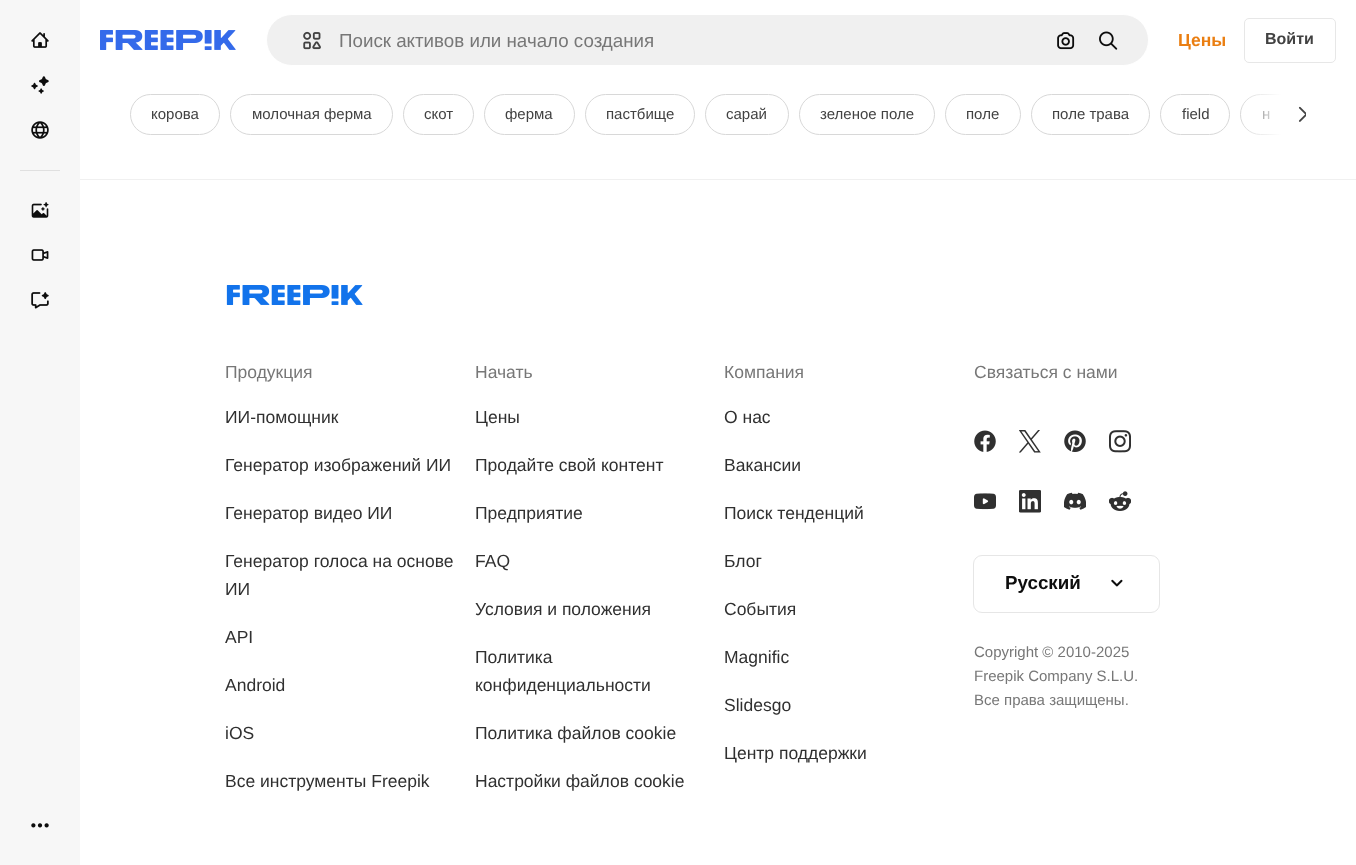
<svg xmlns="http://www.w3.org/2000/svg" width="1356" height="865">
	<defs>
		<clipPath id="clip1"><rect x="130" y="94" width="1176" height="41" /></clipPath>
		<linearGradient id="g1" gradientUnits="userSpaceOnUse" x1="1281" y1="114" x2="1238" y2="114"><stop offset="0" stop-color="#FFFFFF" /><stop offset="1" stop-color="#FFFFFF" stop-opacity="0" /></linearGradient>
	</defs>
	<rect width="100%" height="100%" fill="#FFFFFF" />
	<rect x="0" y="0" width="80" height="865" fill="#F7F7F7" />
	<image x="31" y="32" width="18" height="16" href="assets/img1.png" />
	<image x="31" y="76" width="18" height="18" href="assets/img2.png" />
	<image x="31" y="121" width="18" height="18" href="assets/img3.png" />
	<rect x="20" y="170" width="40" height="1" fill="#E0E0E0" />
	<image x="31" y="202" width="18" height="16" href="assets/img4.png" />
	<image x="31" y="249" width="18" height="12" href="assets/img5.png" />
	<image x="31" y="292" width="18" height="17" href="assets/img6.png" />
	<image x="31" y="823" width="18" height="5" href="assets/img7.png" />
	<image x="100" y="30" width="136" height="20" href="assets/img8.png" />
	<rect x="266.5" y="14.5" width="882" height="51" rx="25.5" fill="#F0F0F0" stroke="#FFFFFF" />
	<image x="303" y="31" width="18" height="19" href="assets/img9.png" />
	<text x="339" y="47" font-family="Liberation Sans" font-size="18.75" fill="#777777">Поиск активов или начало создания</text>
	<image x="1057" y="32" width="18" height="18" href="assets/img10.png" />
	<image x="1099" y="31" width="19" height="19" href="assets/img11.png" />
	<text x="1178" y="46" font-family="Liberation Sans" font-size="17.5" font-weight="700" fill="#EA7E11">Цены</text>
	<rect x="1244.5" y="18.5" width="91" height="44" rx="4.5" fill="none" stroke="#E7E7E7" />
	<text x="1265" y="44" font-family="Liberation Sans" font-size="16" font-weight="700" fill="#424242">Войти</text>
	<rect x="130.5" y="94.5" width="89" height="40" rx="20" fill="none" stroke="#D8D8D8" />
	<text x="151" y="119" font-family="Liberation Sans" font-size="15" fill="#424242">корова</text>
	<rect x="230.5" y="94.5" width="162" height="40" rx="20" fill="none" stroke="#D8D8D8" />
	<text x="252" y="119" font-family="Liberation Sans" font-size="15" fill="#424242">молочная ферма</text>
	<rect x="403.5" y="94.5" width="70" height="40" rx="20" fill="none" stroke="#D8D8D8" />
	<text x="424" y="119" font-family="Liberation Sans" font-size="15" fill="#424242">скот</text>
	<rect x="484.5" y="94.5" width="90" height="40" rx="20" fill="none" stroke="#D8D8D8" />
	<text x="505" y="119" font-family="Liberation Sans" font-size="15" fill="#424242">ферма</text>
	<rect x="585.5" y="94.5" width="109" height="40" rx="20" fill="none" stroke="#D8D8D8" />
	<text x="606" y="119" font-family="Liberation Sans" font-size="15" fill="#424242">пастбище</text>
	<rect x="705.5" y="94.5" width="83" height="40" rx="20" fill="none" stroke="#D8D8D8" />
	<text x="726" y="119" font-family="Liberation Sans" font-size="15" fill="#424242">сарай</text>
	<rect x="799.5" y="94.5" width="135" height="40" rx="20" fill="none" stroke="#D8D8D8" />
	<text x="820" y="119" font-family="Liberation Sans" font-size="15" fill="#424242">зеленое поле</text>
	<rect x="945.5" y="94.5" width="75" height="40" rx="20" fill="none" stroke="#D8D8D8" />
	<text x="966" y="119" font-family="Liberation Sans" font-size="15" fill="#424242">поле</text>
	<rect x="1031.5" y="94.5" width="118" height="40" rx="20" fill="none" stroke="#D8D8D8" />
	<text x="1052" y="119" font-family="Liberation Sans" font-size="15" fill="#424242">поле трава</text>
	<rect x="1160.5" y="94.5" width="69" height="40" rx="20" fill="none" stroke="#D8D8D8" />
	<text x="1182" y="119" font-family="Liberation Sans" font-size="15" fill="#424242">field</text>
	<g clip-path="url(#clip1)">
		<rect x="1240.5" y="94.5" width="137" height="40" rx="20" fill="none" stroke="#D8D8D8" />
	</g>
	<text x="1262" y="119" font-family="Liberation Sans" font-size="15" fill="#424242">н</text>
	<rect x="1281" y="94" width="25" height="41" fill="#FFFFFF" />
	<rect x="1241" y="94" width="40" height="41" fill="url(#g1)" />
	<image x="1298" y="106" width="8" height="16" href="assets/img12.png" />
	<rect x="80" y="179" width="1276" height="1" fill="#F0F0F0" />
	<image x="226" y="285" width="137" height="20" href="assets/img13.png" />
	<text x="225" y="378" font-family="Liberation Sans" font-size="17.5" fill="#777777">Продукция</text>
	<g font-family="Liberation Sans" font-size="17.5" fill="#303030">
		<text x="225" y="423">ИИ-помощник</text>
		<text x="225" y="471">Генератор изображений ИИ</text>
		<text x="225" y="519">Генератор видео ИИ</text>
		<text x="225" y="567">Генератор голоса на основе</text>
		<text x="225" y="595">ИИ</text>
		<text x="225" y="643">API</text>
		<text x="225" y="691">Android</text>
		<text x="225" y="739">iOS</text>
		<text x="225" y="787">Все инструменты Freepik</text>
	</g>
	<text x="475" y="378" font-family="Liberation Sans" font-size="17.5" fill="#777777">Начать</text>
	<g font-family="Liberation Sans" font-size="17.5" fill="#303030">
		<text x="475" y="423">Цены</text>
		<text x="475" y="471">Продайте свой контент</text>
		<text x="475" y="519">Предприятие</text>
		<text x="475" y="567">FAQ</text>
		<text x="475" y="615">Условия и положения</text>
		<text x="475" y="663">Политика</text>
		<text x="475" y="691">конфиденциальности</text>
		<text x="475" y="739">Политика файлов cookie</text>
		<text x="475" y="787">Настройки файлов cookie</text>
	</g>
	<text x="724" y="378" font-family="Liberation Sans" font-size="17.5" fill="#777777">Компания</text>
	<g font-family="Liberation Sans" font-size="17.5" fill="#303030">
		<text x="724" y="423">О нас</text>
		<text x="724" y="471">Вакансии</text>
		<text x="724" y="519">Поиск тенденций</text>
		<text x="724" y="567">Блог</text>
		<text x="724" y="615">События</text>
		<text x="724" y="663">Magnific</text>
		<text x="724" y="711">Slidesgo</text>
		<text x="724" y="759">Центр поддержки</text>
	</g>
	<text x="974" y="378" font-family="Liberation Sans" font-size="17.5" fill="#777777">Связаться с нами</text>
	<image x="974" y="430" width="22" height="22" href="assets/img14.png" />
	<image x="1019" y="430" width="22" height="23" href="assets/img15.png" />
	<image x="1064" y="430" width="22" height="22" href="assets/img16.png" />
	<image x="1109" y="430" width="22" height="23" href="assets/img17.png" />
	<image x="974" y="493" width="22" height="17" href="assets/img18.png" />
	<image x="1019" y="490" width="22" height="23" href="assets/img19.png" />
	<image x="1064" y="492" width="22" height="18" href="assets/img20.png" />
	<image x="1109" y="491" width="22" height="20" href="assets/img21.png" />
	<rect x="973.5" y="555.5" width="186" height="57" rx="8.5" fill="none" stroke="#E6E6E6" />
	<text x="1005" y="589" font-family="Liberation Sans" font-size="18.75" font-weight="700" fill="#0D0D0D">Pусский</text>
	<image x="1111" y="579" width="12" height="8" href="assets/img22.png" />
	<g font-family="Liberation Sans" font-size="15" fill="#777777">
		<text x="974" y="657">Copyright © 2010-2025</text>
		<text x="974" y="681">Freepik Company S.L.U.</text>
		<text x="974" y="705">Все права защищены.</text>
	</g>
</svg>
